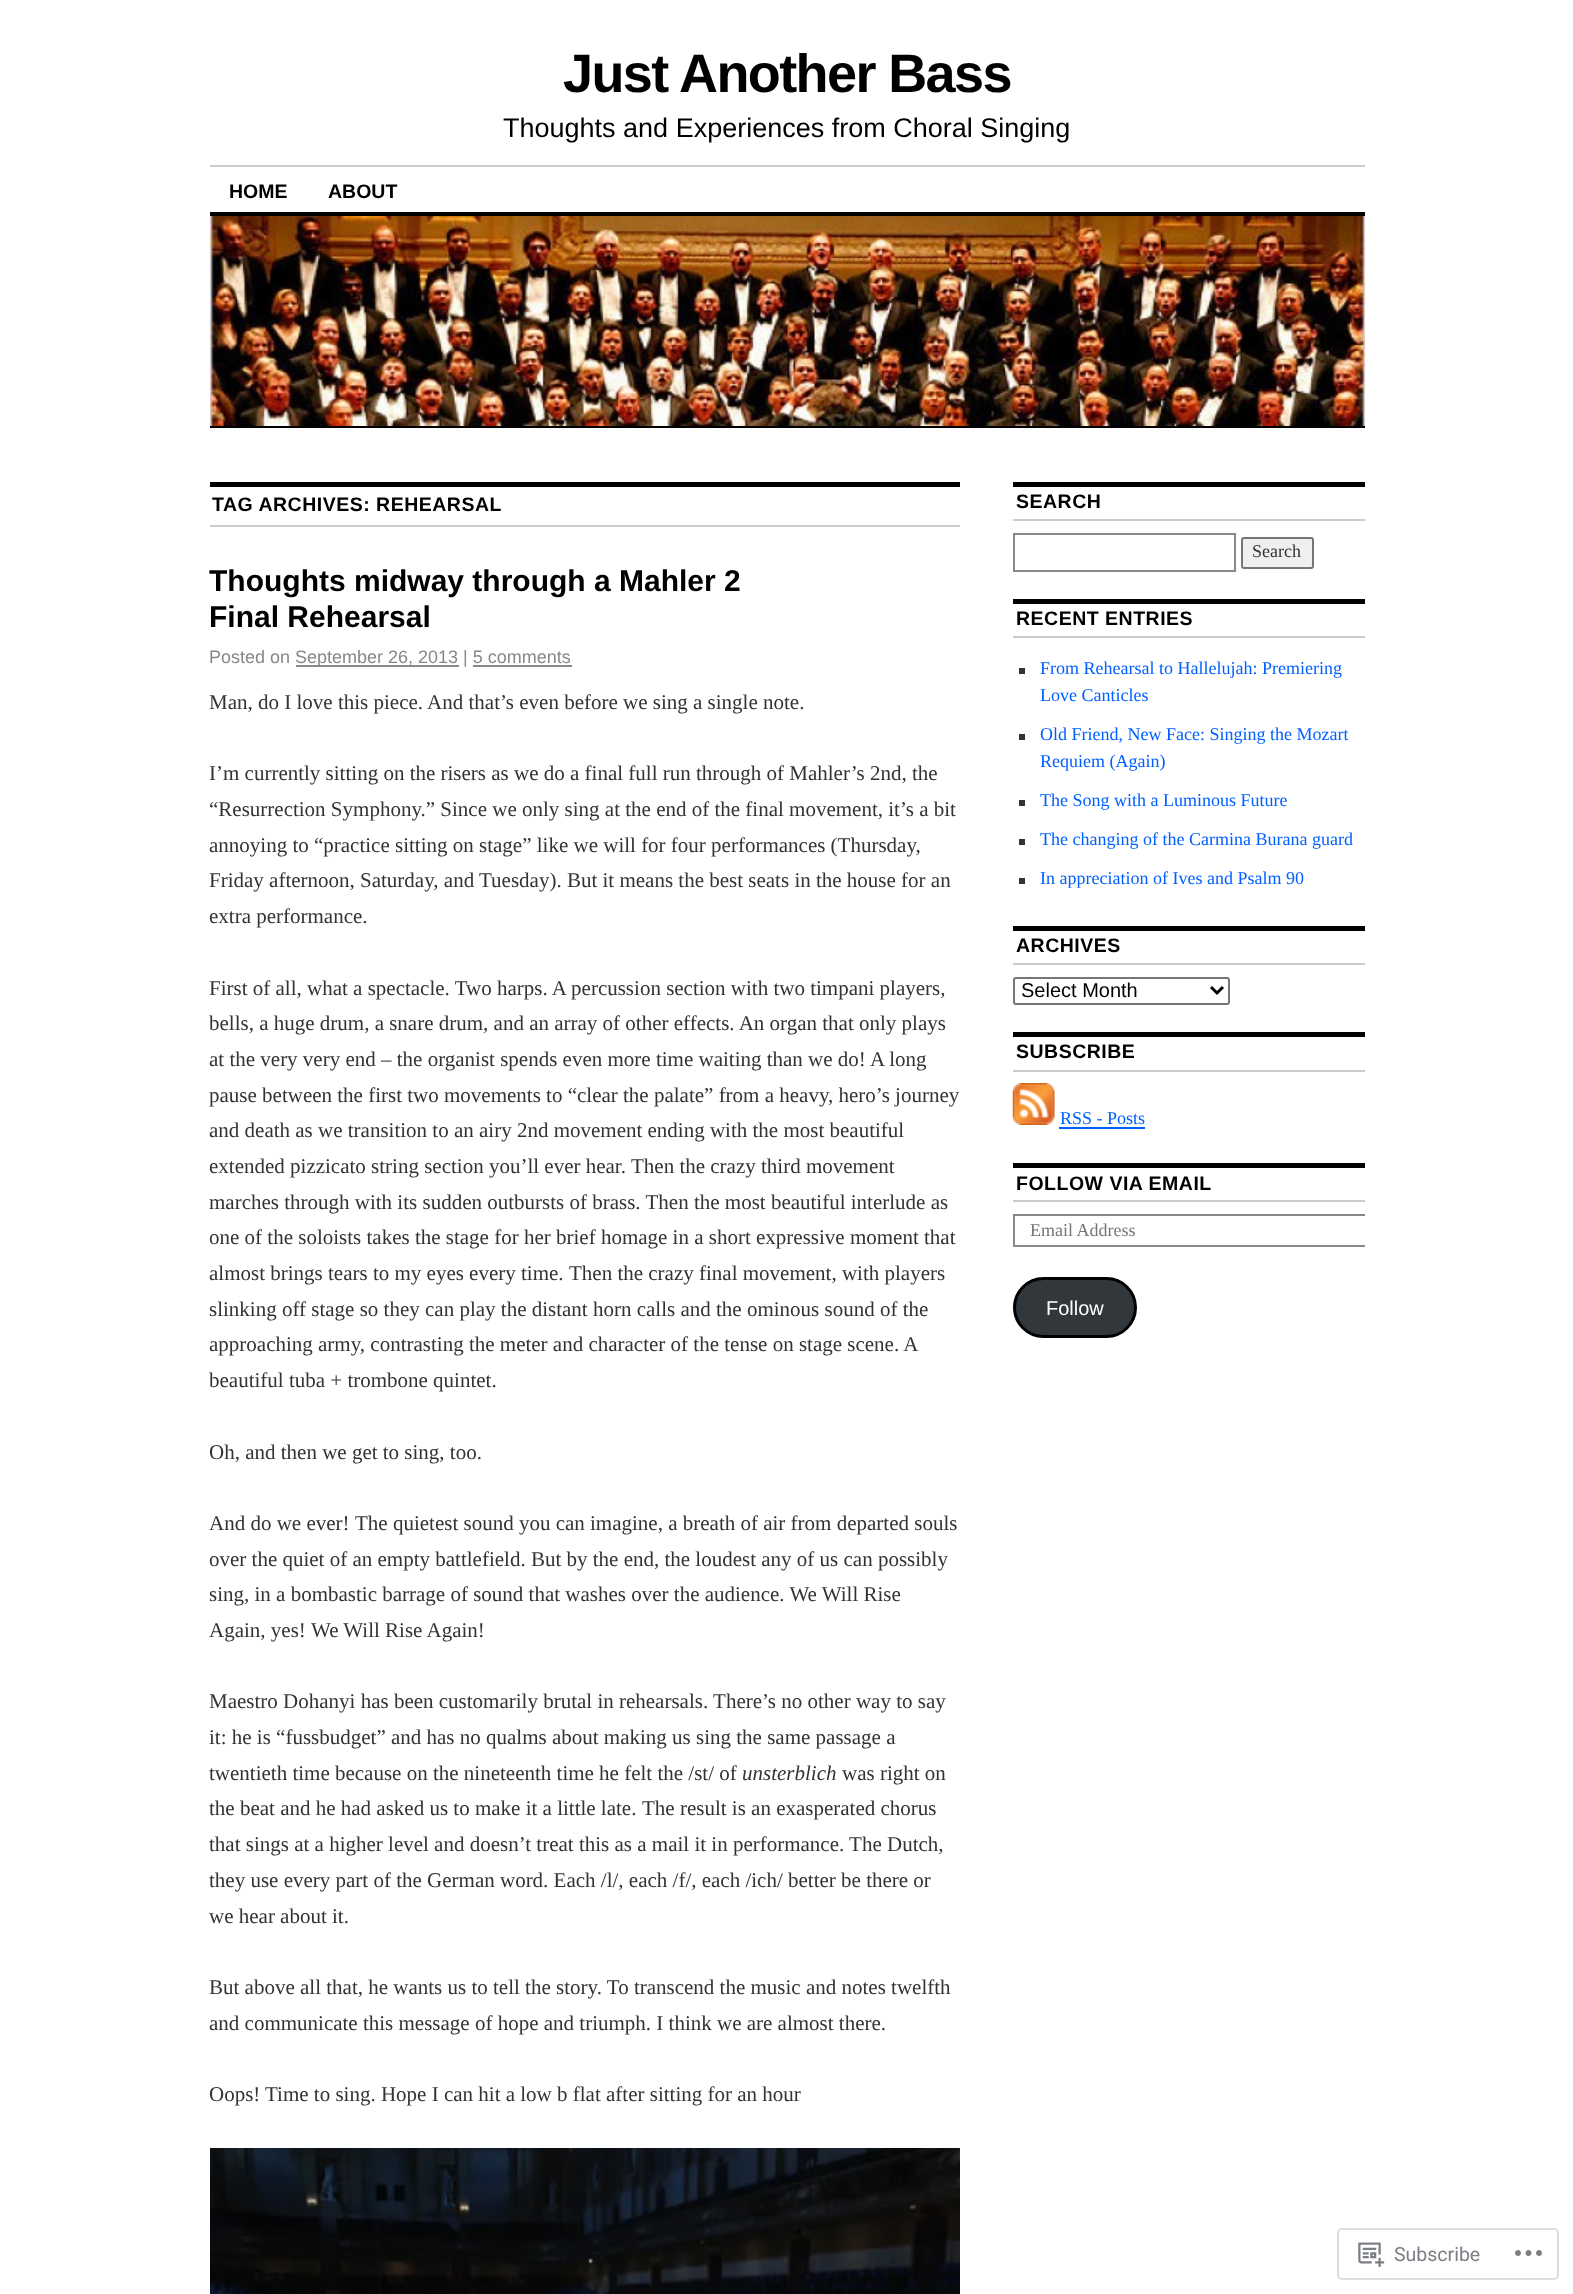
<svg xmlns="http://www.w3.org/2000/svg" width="1573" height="2294">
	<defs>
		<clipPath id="clip1"><rect x="1013" y="482" width="352" height="888" /></clipPath>
	</defs>
	<rect width="100%" height="100%" fill="#FFFFFF" />
	<text x="563" y="92" font-family="Liberation Sans" font-size="54" font-weight="700" letter-spacing="-1.6" fill="#000000">Just Another Bass</text>
	<text x="503" y="137" font-family="Liberation Sans" font-size="27" fill="#000000">Thoughts and Experiences from Choral Singing</text>
	<rect x="210" y="165" width="1155" height="2" fill="#CCCCCC" />
	<g font-family="Liberation Sans" font-size="19.5" font-weight="700" fill="#000000">
		<text x="229" y="198">HOME</text>
		<text x="328" y="198">ABOUT</text>
	</g>
	<rect x="210" y="212" width="1155" height="4" fill="#000000" />
	<image x="210" y="216" width="1155" height="210" href="assets/img1.png" />
	<rect x="210" y="426" width="1155" height="2" fill="#000000" />
	<rect x="210" y="482" width="750" height="5" fill="#000000" />
	<rect x="210" y="525" width="750" height="2" fill="#CCCCCC" />
	<text x="212" y="511" font-family="Liberation Sans" font-size="19.5" font-weight="700" letter-spacing="0.5" fill="#000000">TAG ARCHIVES: REHEARSAL</text>
	<g font-family="Liberation Sans" font-size="30" font-weight="700" fill="#000000">
		<text x="209" y="591">Thoughts midway through a Mahler 2</text>
		<text x="209" y="627">Final Rehearsal</text>
	</g>
	<text x="209" y="663" font-family="Liberation Sans" font-size="18" fill="#888888">Posted on</text>
	<rect x="296" y="665" width="163" height="2" fill="#888888" />
	<text x="295" y="663" font-family="Liberation Sans" font-size="18" fill="#888888">September 26, 2013 | 5 comments</text>
	<rect x="473" y="665" width="99" height="2" fill="#888888" />
	<g font-family="Liberation Serif" font-size="21" fill="#333333">
		<text x="209" y="709">Man, do I love this piece. And that’s even before we sing a single note.</text>
		<text x="209" y="780">I’m currently sitting on the risers as we do a final full run through of Mahler’s 2nd, the</text>
		<text x="209" y="816">“Resurrection Symphony.” Since we only sing at the end of the final movement, it’s a bit</text>
		<text x="209" y="852">annoying to “practice sitting on stage” like we will for four performances (Thursday,</text>
		<text x="209" y="887">Friday afternoon, Saturday, and Tuesday). But it means the best seats in the house for an</text>
		<text x="209" y="923">extra performance.</text>
		<text x="209" y="995">First of all, what a spectacle. Two harps. A percussion section with two timpani players,</text>
		<text x="209" y="1030">bells, a huge drum, a snare drum, and an array of other effects. An organ that only plays</text>
		<text x="209" y="1066">at the very very end – the organist spends even more time waiting than we do! A long</text>
		<text x="209" y="1102">pause between the first two movements to “clear the palate” from a heavy, hero’s journey</text>
		<text x="209" y="1137">and death as we transition to an airy 2nd movement ending with the most beautiful</text>
		<text x="209" y="1173">extended pizzicato string section you’ll ever hear.</text>
		<text x="631" y="1173">Then the crazy third movement</text>
		<text x="209" y="1209">marches through with its sudden outbursts of brass. Then the most beautiful interlude as</text>
		<text x="209" y="1244">one of the soloists takes the stage for her brief homage in a short expressive moment that</text>
		<text x="209" y="1280">almost brings tears to my eyes every time.</text>
		<text x="569" y="1280">Then the crazy final movement, with players</text>
		<text x="209" y="1316">slinking off stage so they can play the distant horn calls and the ominous sound of the</text>
		<text x="209" y="1351">approaching army, contrasting the meter and character of the tense on stage scene. A</text>
		<text x="209" y="1387">beautiful tuba + trombone quintet.</text>
		<text x="209" y="1459">Oh, and then we get to sing, too.</text>
		<text x="209" y="1530">And do we ever!</text>
		<text x="355" y="1530">The quietest sound you can imagine, a breath of air from departed souls</text>
		<text x="209" y="1566">over the quiet of an empty battlefield. But by the end, the loudest any of us can possibly</text>
		<text x="209" y="1601">sing, in a bombastic barrage of sound that washes over the audience. We Will Rise</text>
		<text x="209" y="1637">Again, yes!</text>
		<text x="311" y="1637">We Will Rise Again!</text>
		<text x="209" y="1708">Maestro Dohanyi has been customarily brutal in rehearsals. There’s no other way to say</text>
		<text x="209" y="1744">it: he is “fussbudget” and has no qualms about making us sing the same passage a</text>
		<text x="209" y="1780">twentieth time because on the nineteenth time he felt the /st/ of</text>
	</g>
	<text x="742" y="1780" font-family="Liberation Serif" font-size="21" font-style="italic" fill="#333333">unsterblich</text>
	<g font-family="Liberation Serif" font-size="21" fill="#333333">
		<text x="842" y="1780">was right on</text>
		<text x="209" y="1815">the beat and he had asked us to make it a little late.</text>
		<text x="642" y="1815">The result is an exasperated chorus</text>
		<text x="209" y="1851">that sings at a higher level and doesn’t treat this as a mail it in performance. The Dutch,</text>
		<text x="209" y="1887">they use every part of the German word. Each /l/, each /f/, each /ich/ better be there or</text>
		<text x="209" y="1923">we hear about it.</text>
		<text x="209" y="1994">But above all that, he wants us to tell the story. To transcend the music and notes twelfth</text>
		<text x="209" y="2030">and communicate this message of hope and triumph. I think we are almost there.</text>
		<text x="209" y="2101">Oops!</text>
		<text x="265" y="2101">Time to sing. Hope I can hit a low b flat after sitting for an hour</text>
	</g>
	<image x="210" y="2148" width="750" height="146" href="assets/img2.png" />
	<rect x="1013" y="482" width="352" height="5" fill="#000000" />
	<rect x="1013" y="519" width="352" height="2" fill="#CCCCCC" />
	<text x="1016" y="508" font-family="Liberation Sans" font-size="19.5" font-weight="700" letter-spacing="0.5" fill="#000000">SEARCH</text>
	<rect x="1014" y="534" width="221" height="37" fill="none" stroke="#888888" stroke-width="2" />
	<rect x="1242" y="538" width="71" height="30" rx="2" fill="#EFEFEF" stroke="#767676" stroke-width="2" />
	<text x="1252" y="557" font-family="Liberation Serif" font-size="18" fill="#333333">Search</text>
	<rect x="1013" y="599" width="352" height="5" fill="#000000" />
	<rect x="1013" y="636" width="352" height="2" fill="#CCCCCC" />
	<text x="1016" y="625" font-family="Liberation Sans" font-size="19.5" font-weight="700" letter-spacing="0.5" fill="#000000">RECENT ENTRIES</text>
	<rect x="1019" y="668" width="6" height="6" fill="#333333" />
	<g font-family="Liberation Serif" font-size="18" fill="#0060FF">
		<text x="1040" y="674">From Rehearsal to Hallelujah: Premiering</text>
		<text x="1040" y="701">Love Canticles</text>
	</g>
	<rect x="1019" y="734" width="6" height="6" fill="#333333" />
	<g font-family="Liberation Serif" font-size="18" fill="#0060FF">
		<text x="1040" y="740">Old Friend, New Face: Singing the Mozart</text>
		<text x="1040" y="767">Requiem (Again)</text>
	</g>
	<rect x="1019" y="800" width="6" height="6" fill="#333333" />
	<text x="1040" y="806" font-family="Liberation Serif" font-size="18" fill="#0060FF">The Song with a Luminous Future</text>
	<rect x="1019" y="839" width="6" height="6" fill="#333333" />
	<text x="1040" y="845" font-family="Liberation Serif" font-size="18" fill="#0060FF">The changing of the Carmina Burana guard</text>
	<rect x="1019" y="878" width="6" height="6" fill="#333333" />
	<text x="1040" y="884" font-family="Liberation Serif" font-size="18" fill="#0060FF">In appreciation of Ives and Psalm 90</text>
	<rect x="1013" y="926" width="352" height="5" fill="#000000" />
	<rect x="1013" y="963" width="352" height="2" fill="#CCCCCC" />
	<text x="1016" y="952" font-family="Liberation Sans" font-size="19.5" font-weight="700" letter-spacing="0.5" fill="#000000">ARCHIVES</text>
	<rect x="1014" y="978" width="215" height="26" rx="2" fill="none" stroke="#767676" stroke-width="2" />
	<path d="M1211 987L1217 993L1223 987" fill="none" stroke="#000000" stroke-width="3" />
	<text x="1021" y="997" font-family="Liberation Sans" font-size="20" fill="#000000">Select Month</text>
	<rect x="1013" y="1032" width="352" height="5" fill="#000000" />
	<rect x="1013" y="1070" width="352" height="2" fill="#CCCCCC" />
	<text x="1016" y="1058" font-family="Liberation Sans" font-size="19.5" font-weight="700" letter-spacing="0.5" fill="#000000">SUBSCRIBE</text>
	<image x="1012" y="1083" width="43" height="42" href="assets/img3.png" />
	<text x="1060" y="1124" font-family="Liberation Serif" font-size="18" fill="#0060FF">RSS - Posts</text>
	<rect x="1059" y="1127" width="86" height="2" fill="#0060FF" />
	<rect x="1013" y="1163" width="352" height="5" fill="#000000" />
	<rect x="1013" y="1200" width="352" height="2" fill="#CCCCCC" />
	<text x="1016" y="1190" font-family="Liberation Sans" font-size="19.5" font-weight="700" letter-spacing="0.5" fill="#000000">FOLLOW VIA EMAIL</text>
	<g clip-path="url(#clip1)">
		<rect x="1014" y="1215" width="365" height="31" fill="none" stroke="#888888" stroke-width="2" />
	</g>
	<text x="1030" y="1236" font-family="Liberation Serif" font-size="18" fill="#757575">Email Address</text>
	<rect x="1014.5" y="1278.5" width="121" height="58" rx="29" fill="#32373C" stroke="#000000" stroke-width="3" />
	<text x="1046" y="1315" font-family="Liberation Sans" font-size="20" fill="#FFFFFF">Follow</text>
	<rect x="1338" y="2229" width="220" height="50" rx="4" fill="none" stroke="#DDDDDF" stroke-width="2" />
	<image x="1358" y="2242" width="27" height="25" href="assets/img4.png" />
	<text x="1394" y="2261" font-family="Roboto" font-size="19.5" fill="#7B7F85">Subscribe</text>
	<image x="1515" y="2250" width="27" height="6" href="assets/img5.png" />
</svg>
